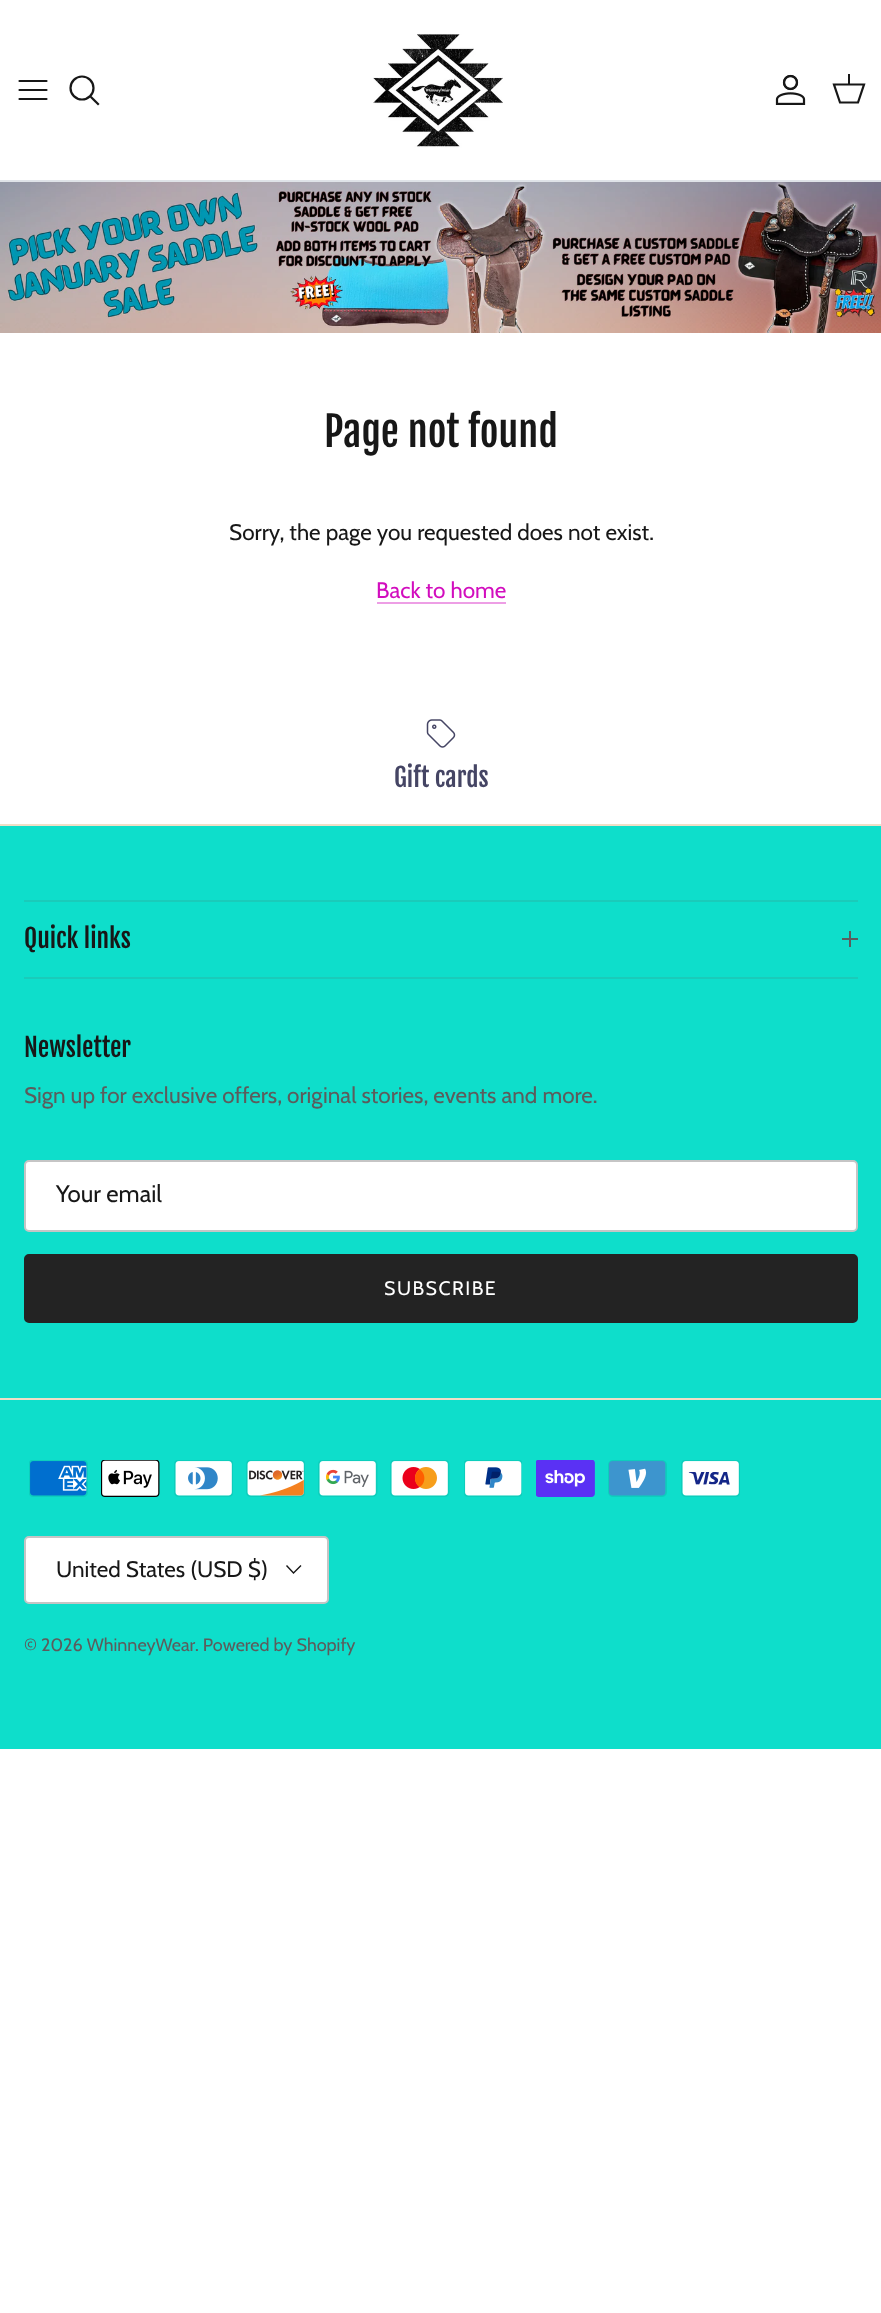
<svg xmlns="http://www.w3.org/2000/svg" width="881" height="2313">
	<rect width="100%" height="100%" fill="#FFFFFF" />
	<rect x="0" y="180" width="881" height="2" fill="#DFE3E8" />
	<path d="M19.5 90H46.5M19.5 81H46.5M19.5 99H46.5" fill="none" stroke="#171717" stroke-width="2.2" stroke-linecap="round" stroke-linejoin="round" />
	<circle cx="82" cy="88" r="11.5" fill="none" stroke="#171717" stroke-width="2.2" />
	<path d="M91.5 97.5L98 104" fill="none" stroke="#171717" stroke-width="2.2" stroke-linecap="square" />
	<image x="373" y="34" width="130" height="114" href="assets/img1.png" />
	<image x="775" y="74" width="31" height="31" href="assets/img2.png" />
	<path d="M834 84.5H864L858 102.5H840Z" fill="none" stroke="#171717" stroke-width="2.2" />
	<rect x="848" y="74" width="2" height="11" fill="#171717" />
	<image x="0" y="182" width="881" height="151" href="assets/img3.png" />
	<text x="324" y="447" font-family="Fjalla One" font-size="40.5" fill="#171717">Page not found</text>
	<text x="229" y="540" font-family="Cabin" font-size="22.5" fill="#171717">Sorry, the page you requested does not exist.</text>
	<text x="376" y="598" font-family="Cabin" font-size="22.5" fill="#D20DBE">Back to home</text>
	<rect x="377" y="602" width="129" height="2" fill="#ED9EE5" />
	<image x="426" y="719" width="30" height="29" href="assets/img4.png" />
	<text x="394" y="787" font-family="Fjalla One" font-size="25.5" fill="#454564">Gift cards</text>
	<rect x="0" y="826" width="881" height="923" fill="#0EDECB" />
	<rect x="0" y="824" width="881" height="2" fill="#EFDFC7" />
	<rect x="24" y="900" width="834" height="2" fill="#1ACBBA" />
	<rect x="24" y="977" width="834" height="2" fill="#1ACBBA" />
	<text x="24" y="948" font-family="Fjalla One" font-size="25.5" fill="#171717">Quick links</text>
	<rect x="849" y="931" width="2" height="16" fill="#5C5C5C" />
	<rect x="842" y="938" width="16" height="2" fill="#5C5C5C" />
	<text x="24" y="1057" font-family="Fjalla One" font-size="25.5" fill="#171717">Newsletter</text>
	<text x="24" y="1103" font-family="Cabin" font-size="22.5" fill="#5C5C5C">Sign up for exclusive offers, original stories, events and more.</text>
	<rect x="25" y="1161" width="832" height="70" rx="4" fill="#FFFFFF" stroke="#C5C5C5" stroke-width="2" />
	<text x="56" y="1202" font-family="Cabin" font-size="24" fill="#171717">Your email</text>
	<rect x="25" y="1255" width="832" height="67" rx="4" fill="#232323" stroke="#232323" stroke-width="2" />
	<text x="384" y="1295" font-family="Cabin" font-size="19.5" letter-spacing="1.5" fill="#FFFFFF">SUBSCRIBE</text>
	<rect x="0" y="1398" width="881" height="2" fill="#EFDFC7" />
	<image x="29" y="1460" width="59" height="37" href="assets/img5.png" />
	<image x="101" y="1460" width="59" height="37" href="assets/img6.png" />
	<image x="174" y="1460" width="59" height="37" href="assets/img7.png" />
	<image x="246" y="1460" width="59" height="37" href="assets/img8.png" />
	<image x="318" y="1460" width="60" height="37" href="assets/img9.png" />
	<image x="390" y="1460" width="60" height="37" href="assets/img10.png" />
	<image x="464" y="1460" width="58" height="37" href="assets/img11.png" />
	<image x="536" y="1460" width="59" height="37" href="assets/img12.png" />
	<image x="608" y="1460" width="59" height="37" href="assets/img13.png" />
	<image x="681" y="1460" width="59" height="37" href="assets/img14.png" />
	<rect x="25" y="1537" width="303" height="66" rx="4" fill="#FFFFFF" stroke="#C5C5C5" stroke-width="2" />
	<text x="56" y="1577" font-family="Cabin" font-size="22.5" fill="#171717">United States (USD $)</text>
	<path d="M301 1565.5L293.5 1573L286.5 1565.5" fill="none" stroke="#171717" stroke-width="1.4" />
	<g font-family="Cabin" font-size="18" fill="#5C5C5C">
		<text x="24" y="1651">© 2026 WhinneyWear</text>
		<text x="195" y="1651">. Powered by Shopify</text>
	</g>
</svg>
